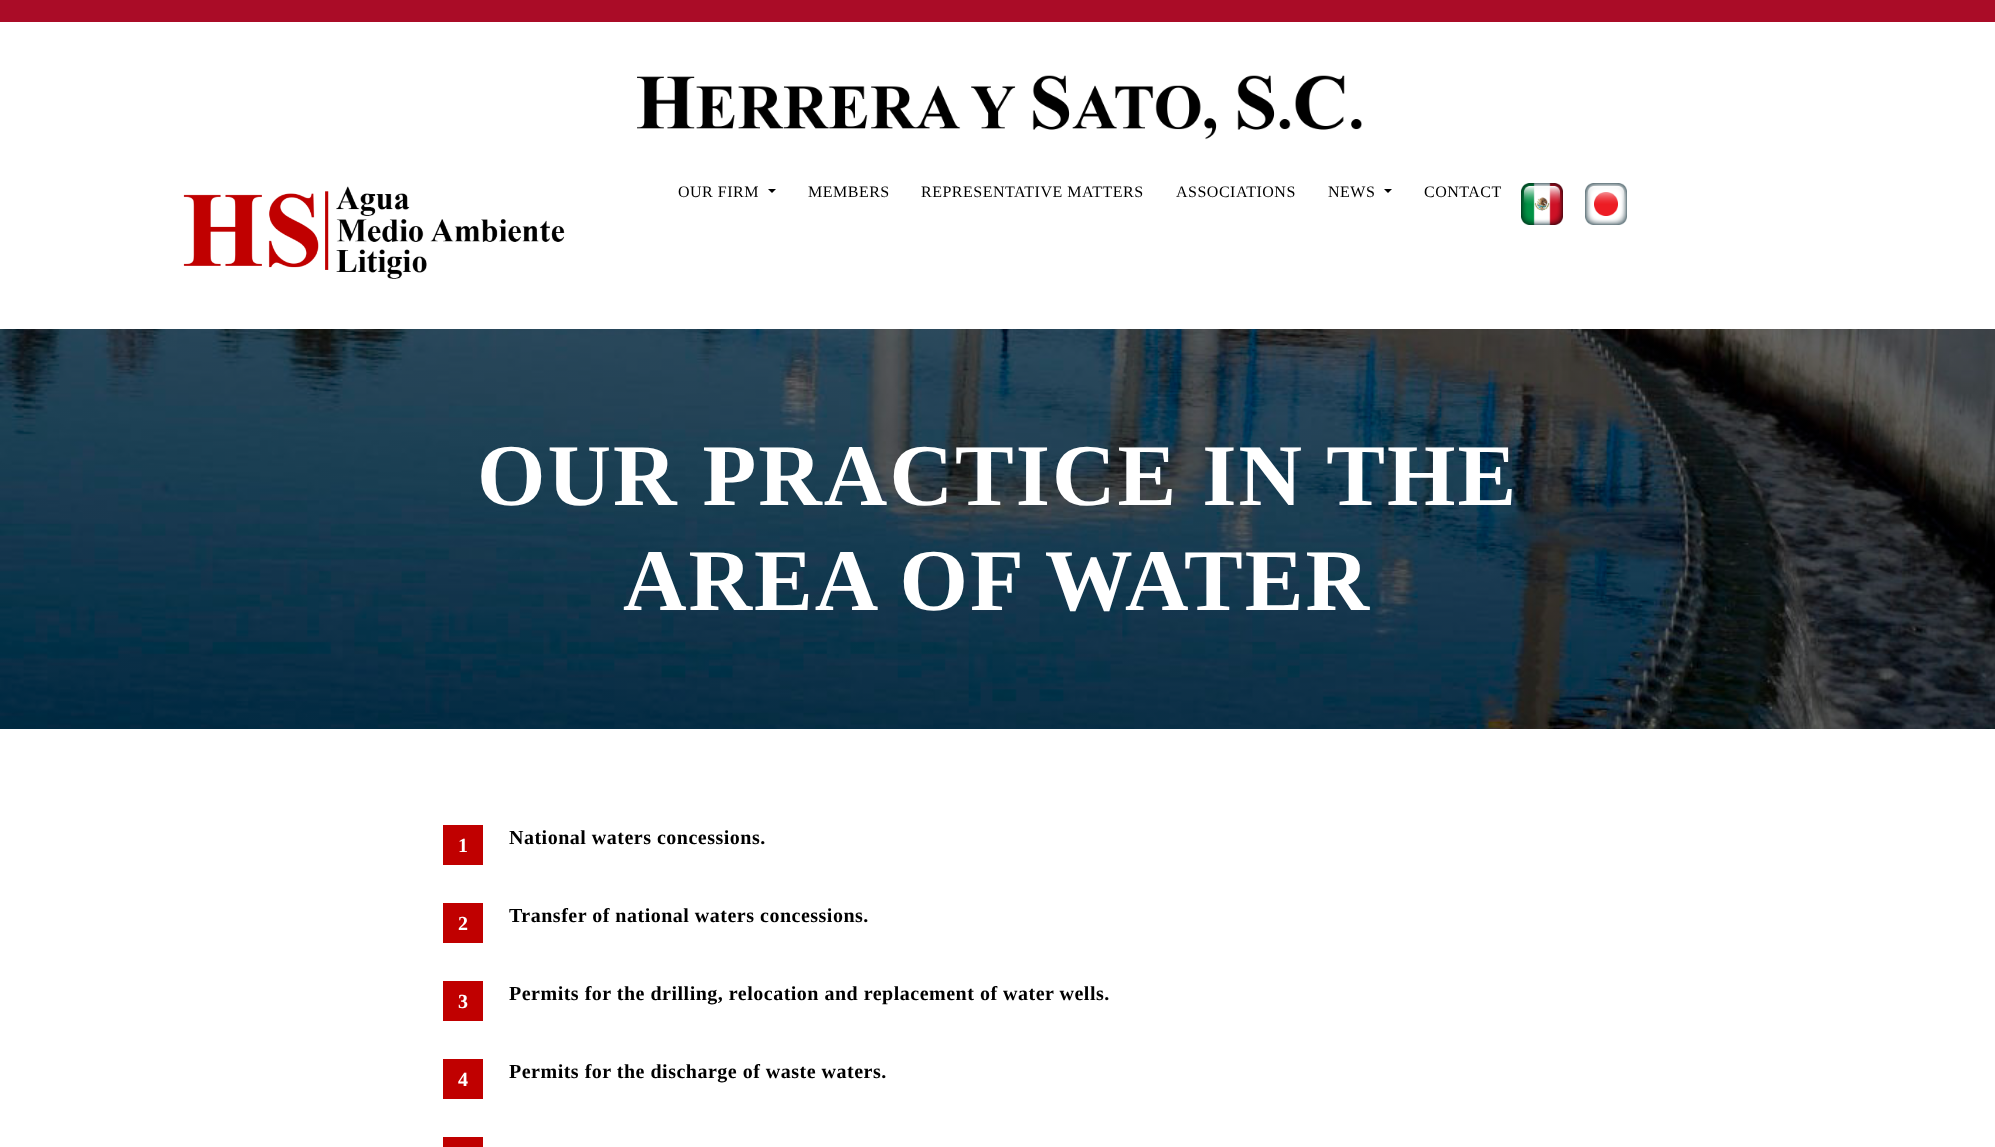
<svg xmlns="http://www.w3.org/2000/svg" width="1995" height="1147">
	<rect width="100%" height="100%" fill="#FFFFFF" />
	<rect x="0" y="0" width="1995" height="22" fill="#AA0C27" />
	<image x="637" y="75" width="725" height="65" href="assets/img1.png" />
	<image x="183" y="186" width="382" height="93" href="assets/img2.png" />
	<text x="678" y="197" font-family="Liberation Serif" font-size="16" letter-spacing="0.5" fill="#000000">OUR FIRM</text>
	<path d="M768 189H776L772 193Z" fill="#000000" />
	<g font-family="Liberation Serif" font-size="16" letter-spacing="0.5" fill="#000000">
		<text x="808" y="197">MEMBERS</text>
		<text x="921" y="197">REPRESENTATIVE MATTERS</text>
		<text x="1176" y="197">ASSOCIATIONS</text>
		<text x="1328" y="197">NEWS</text>
	</g>
	<path d="M1384 189H1392L1388 193Z" fill="#000000" />
	<text x="1424" y="197" font-family="Liberation Serif" font-size="16" letter-spacing="0.5" fill="#000000">CONTACT</text>
	<image x="1521" y="183" width="42" height="42" href="assets/img3.png" />
	<image x="1585" y="183" width="42" height="42" href="assets/img4.png" />
	<image x="0" y="329" width="1995" height="400" href="assets/img5.png" />
	<g font-family="Liberation Serif" font-size="88" font-weight="700" letter-spacing="2" fill="#FFFFFF">
		<text x="477" y="505">OUR PRACTICE IN THE</text>
		<text x="623" y="610">AREA OF WATER</text>
	</g>
	<rect x="443" y="825" width="40" height="40" fill="#C00000" />
	<text x="458" y="852" font-family="Liberation Serif" font-size="20" font-weight="700" fill="#FFFFFF">1</text>
	<text x="509" y="844" font-family="Liberation Serif" font-size="20" font-weight="700" letter-spacing="0.5" fill="#000000">National waters concessions.</text>
	<rect x="443" y="903" width="40" height="40" fill="#C00000" />
	<text x="458" y="930" font-family="Liberation Serif" font-size="20" font-weight="700" fill="#FFFFFF">2</text>
	<text x="509" y="922" font-family="Liberation Serif" font-size="20" font-weight="700" letter-spacing="0.5" fill="#000000">Transfer of national waters concessions.</text>
	<rect x="443" y="981" width="40" height="40" fill="#C00000" />
	<text x="458" y="1008" font-family="Liberation Serif" font-size="20" font-weight="700" fill="#FFFFFF">3</text>
	<text x="509" y="1000" font-family="Liberation Serif" font-size="20" font-weight="700" letter-spacing="0.5" fill="#000000">Permits for the drilling, relocation and replacement of water wells.</text>
	<rect x="443" y="1059" width="40" height="40" fill="#C00000" />
	<text x="458" y="1086" font-family="Liberation Serif" font-size="20" font-weight="700" fill="#FFFFFF">4</text>
	<text x="509" y="1078" font-family="Liberation Serif" font-size="20" font-weight="700" letter-spacing="0.5" fill="#000000">Permits for the discharge of waste waters.</text>
	<rect x="443" y="1137" width="40" height="10" fill="#C00000" />
</svg>
